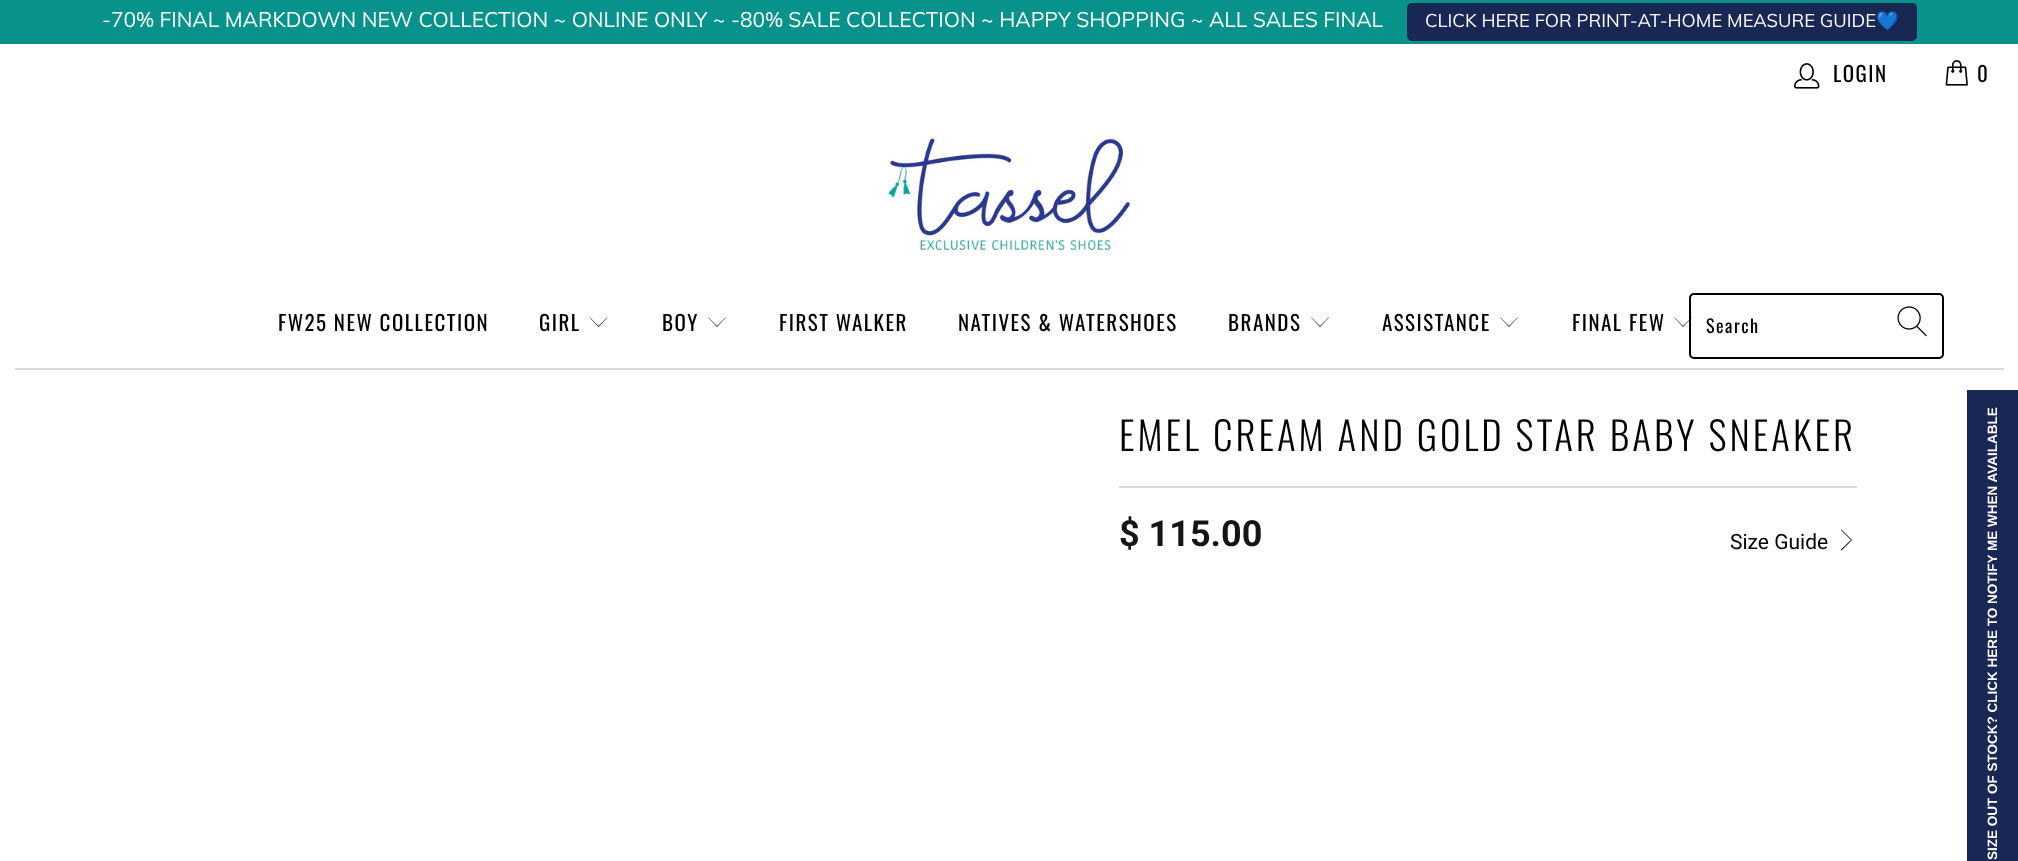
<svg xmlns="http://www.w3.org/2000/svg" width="2018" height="861">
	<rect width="100%" height="100%" fill="#FFFFFF" />
	<rect x="0" y="0" width="2018" height="44" fill="#07938B" />
	<text x="102" y="27" font-family="Muli" font-size="21" fill="#FFFFFF">-70% FINAL MARKDOWN NEW COLLECTION ~ ONLINE ONLY ~ -80% SALE COLLECTION ~ HAPPY SHOPPING ~ ALL SALES FINAL</text>
	<rect x="1407" y="3" width="510" height="38" rx="5" fill="#192754" />
	<text x="1425" y="27" font-family="Muli" font-size="18.4" fill="#FFFFFF">CLICK HERE FOR PRINT-AT-HOME MEASURE GUIDE</text>
	<text x="1876" y="27" font-family="Noto Color Emoji" font-size="18.4" fill="#FFFFFF">💙</text>
	<image x="1794" y="63" width="26" height="26" href="assets/img1.png" />
	<text x="1833" y="82" font-family="Oswald" font-size="21" letter-spacing="1.5" fill="#000000">LOGIN</text>
	<image x="1945" y="60" width="23" height="26" href="assets/img2.png" />
	<text x="1977" y="82" font-family="Oswald" font-size="21" letter-spacing="1.5" fill="#000000">0</text>
	<image x="887" y="136" width="245" height="118" href="assets/img3.png" />
	<g font-family="Oswald" font-size="21" letter-spacing="1.5" fill="#000000">
		<text x="278" y="331">FW25 NEW COLLECTION</text>
		<text x="539" y="331">GIRL</text>
	</g>
	<path d="M598.5 327L589.5 317.5H590L598.5 326L607 317.5H607.5Z" fill="#000000" />
	<text x="662" y="331" font-family="Oswald" font-size="21" letter-spacing="1.5" fill="#000000">BOY</text>
	<path d="M717 327L708 317.5H708.5L717 326L725.5 317.5H726Z" fill="#000000" />
	<g font-family="Oswald" font-size="21" letter-spacing="1.5" fill="#000000">
		<text x="779" y="331">FIRST WALKER</text>
		<text x="958" y="331">NATIVES &amp; WATERSHOES</text>
		<text x="1228" y="331">BRANDS</text>
	</g>
	<path d="M1320 327L1311 317.5H1311.5L1320 326L1328.5 317.5H1329Z" fill="#000000" />
	<text x="1382" y="331" font-family="Oswald" font-size="21" letter-spacing="1.5" fill="#000000">ASSISTANCE</text>
	<path d="M1509 327L1500 317.5H1500.5L1509 326L1517.5 317.5H1518Z" fill="#000000" />
	<text x="1572" y="331" font-family="Oswald" font-size="21" letter-spacing="1.5" fill="#000000">FINAL FEW</text>
	<path d="M1683 327L1674 317.5H1674.5L1683 326L1691.5 317.5H1692Z" fill="#000000" />
	<rect x="1690" y="294" width="253" height="64" rx="4" fill="none" stroke="#000000" stroke-width="2" />
	<text x="1706" y="333" font-family="Oswald" font-size="18" letter-spacing="1.5" fill="#000000">Search</text>
	<image x="1897" y="306" width="30" height="31" href="assets/img4.png" />
	<rect x="15" y="368" width="1989" height="2" fill="#DBDBDB" />
	<text x="1119" y="451" font-family="Oswald" font-size="39" font-weight="300" letter-spacing="3" fill="#000000">EMEL CREAM AND GOLD STAR BABY SNEAKER</text>
	<rect x="1119" y="486" width="738" height="2" fill="#DBDBDB" />
	<text x="1119" y="546" font-family="Roboto" font-size="36" font-weight="700" fill="#151515">$ 115.00</text>
	<text x="1730" y="549" font-family="Roboto" font-size="21" fill="#000000">Size Guide</text>
	<path d="M1841.5 550.5L1841 549.5L1851 540L1841 530L1841.5 529.5L1852 540Z" fill="#000000" />
	<rect x="1967" y="390" width="51" height="471" fill="#192754" />
	<text x="1997" y="860" transform="rotate(-90 1997 860)" font-family="Liberation Sans" font-size="13.5" font-weight="700" fill="#FFFFFF">SIZE OUT OF STOCK? CLICK HERE TO NOTIFY ME WHEN AVAILABLE</text>
</svg>
